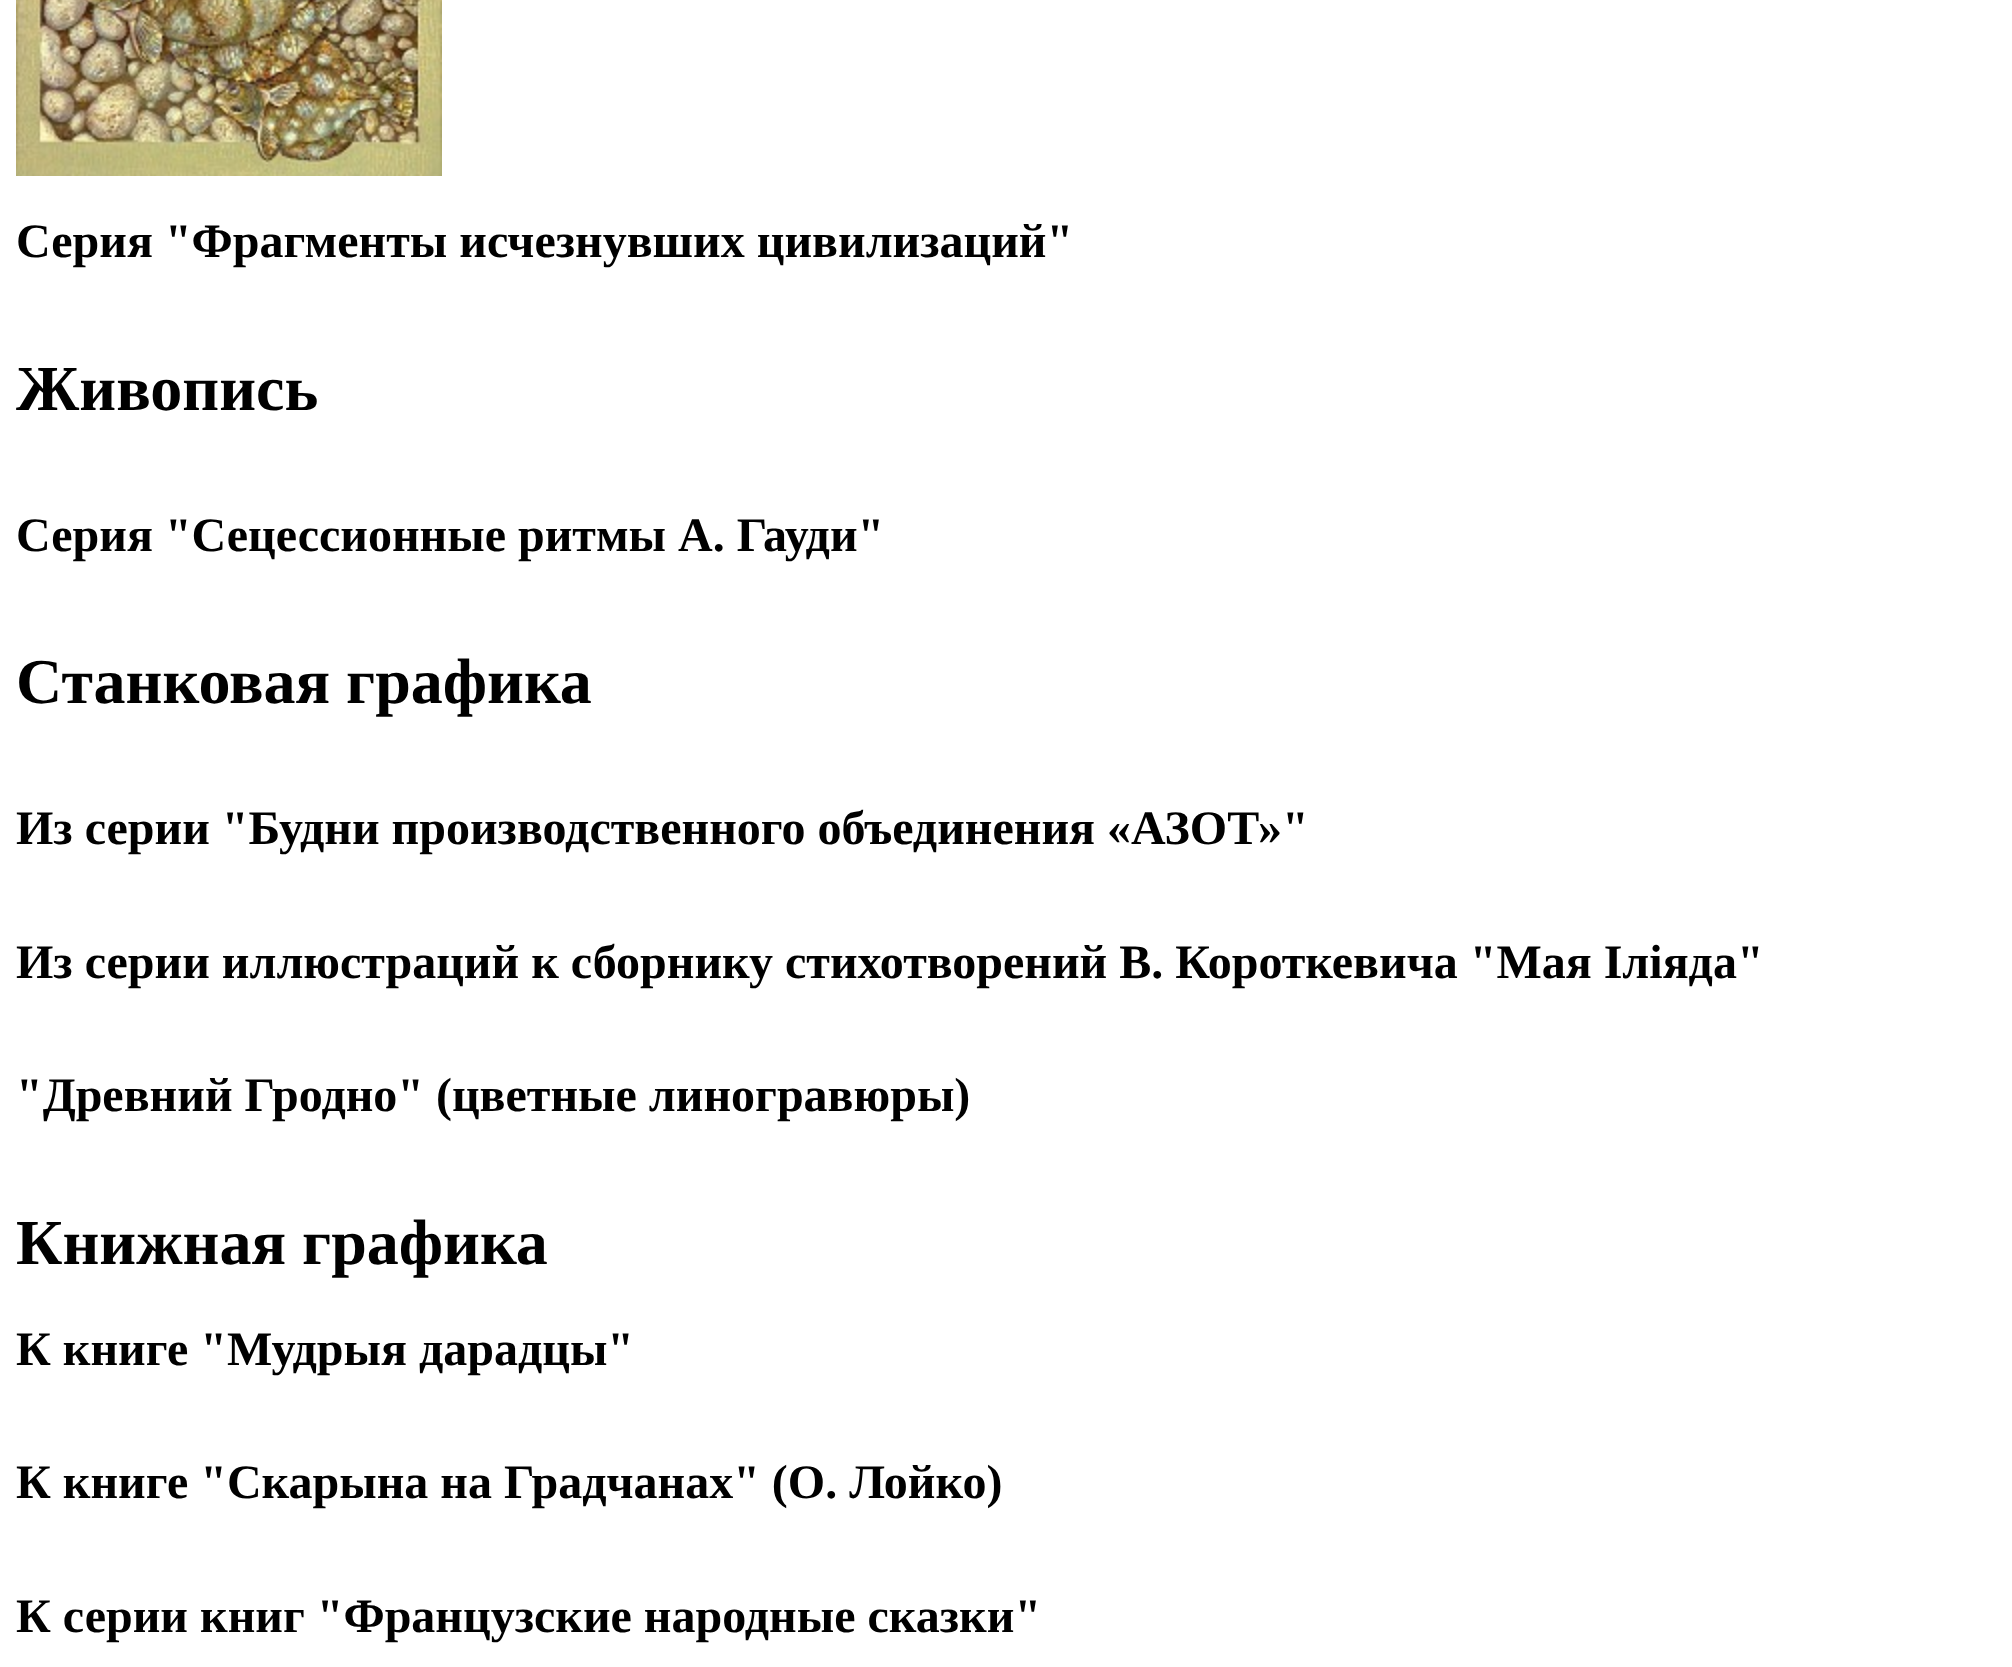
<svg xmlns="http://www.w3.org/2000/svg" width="2012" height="1667">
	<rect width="100%" height="100%" fill="#FFFFFF" />
	<image x="16" y="0" width="426" height="176" href="assets/img1.png" />
	<text x="16" y="257" font-family="Liberation Serif" font-size="48" font-weight="700" fill="#000000">Серия "Фрагменты исчезнувших цивилизаций"</text>
	<text x="16" y="410" font-family="Liberation Serif" font-size="64" font-weight="700" fill="#000000">Живопись</text>
	<text x="16" y="551" font-family="Liberation Serif" font-size="48" font-weight="700" fill="#000000">Серия "Сецессионные ритмы А. Гауди"</text>
	<text x="16" y="703" font-family="Liberation Serif" font-size="64" font-weight="700" fill="#000000">Станковая графика</text>
	<g font-family="Liberation Serif" font-size="48" font-weight="700" fill="#000000">
		<text x="16" y="844">Из серии "Будни производственного объединения «АЗОТ»"</text>
		<text x="16" y="978">Из серии иллюстраций к сборнику стихотворений В. Короткевича "Мая Iлiяда"</text>
		<text x="16" y="1111">"Древний Гродно" (цветные линогравюры)</text>
	</g>
	<text x="16" y="1264" font-family="Liberation Serif" font-size="64" font-weight="700" fill="#000000">Книжная графика</text>
	<g font-family="Liberation Serif" font-size="48" font-weight="700" fill="#000000">
		<text x="16" y="1365">К книге "Мудрыя дарадцы"</text>
		<text x="16" y="1498">К книге "Скарына на Градчанах" (О. Лойко)</text>
		<text x="16" y="1632">К серии книг "Французские народные сказки"</text>
	</g>
</svg>
